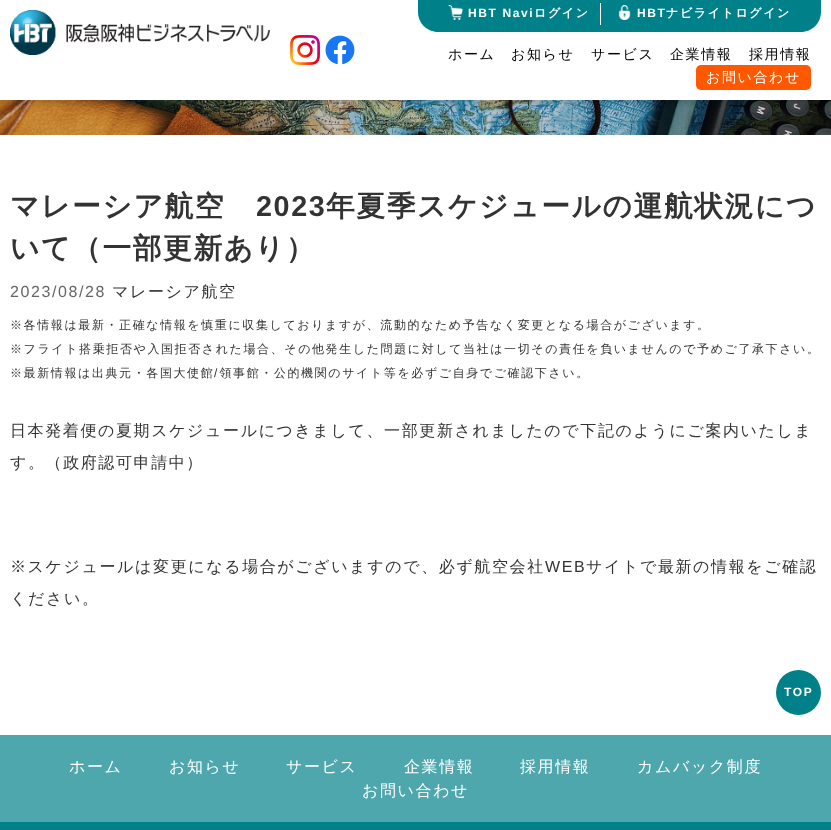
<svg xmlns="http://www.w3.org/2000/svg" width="831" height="830">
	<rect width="100%" height="100%" fill="#FFFFFF" />
	<image x="0" y="100" width="831" height="35" href="assets/img6.png" />
	<rect x="0" y="3" width="831" height="100" fill="#000000" fill-opacity="0.15" filter="blur(3px)" />
	<rect x="0" y="0" width="831" height="100" fill="#FFFFFF" />
	<image x="10" y="10" width="260" height="45" href="assets/img1.png" />
	<image x="290" y="35" width="30" height="30" href="assets/img2.png" />
	<image x="325" y="35" width="30" height="30" href="assets/img3.png" />
	<path d="M418 0H821V12C821 23 812 32 801 32H438C427 32 418 23 418 12Z" fill="#00818A" />
	<rect x="600" y="3" width="1" height="22" fill="#FFFFFF" />
	<image x="448" y="5" width="15" height="15" href="assets/img4.png" />
	<text x="468" y="17" font-family="Liberation Sans" font-size="12" font-weight="700" letter-spacing="1.6" fill="#FFFFFF">HBT Navi</text>
	<text x="534" y="17" font-family="WenQuanYi Zen Hei" font-size="12" font-weight="700" letter-spacing="1.6" fill="#FFFFFF">ログイン</text>
	<image x="618" y="5" width="13" height="15" href="assets/img5.png" />
	<text x="637" y="17" font-family="Liberation Sans" font-size="12" font-weight="700" letter-spacing="1.6" fill="#FFFFFF">HBT</text>
	<text x="666" y="17" font-family="WenQuanYi Zen Hei" font-size="12" font-weight="700" letter-spacing="1.6" fill="#FFFFFF">ナビライトログイン</text>
	<g font-family="WenQuanYi Zen Hei" font-size="14" font-weight="500" letter-spacing="1.6" fill="#000000">
		<text x="448" y="59">ホーム</text>
		<text x="511" y="59">お知らせ</text>
		<text x="591" y="59">サービス</text>
		<text x="670" y="59">企業情報</text>
		<text x="749" y="59">採用情報</text>
	</g>
	<rect x="696" y="65" width="115" height="25" rx="5" fill="#FF5800" />
	<text x="706" y="82" font-family="WenQuanYi Zen Hei" font-size="14" font-weight="500" letter-spacing="1.6" fill="#FFFFFF">お問い合わせ</text>
	<text x="10" y="216" font-family="WenQuanYi Zen Hei" font-size="28.75" font-weight="700" letter-spacing="1.6" fill="#333333">マレーシア航空</text>
	<text x="256" y="216" font-family="Liberation Sans" font-size="28.75" font-weight="700" letter-spacing="1.6" fill="#333333">2023</text>
	<g font-family="WenQuanYi Zen Hei" font-size="28.75" font-weight="700" letter-spacing="1.6" fill="#333333">
		<text x="326" y="216">年夏季スケジュールの運航状況につ</text>
		<text x="10" y="258">いて（一部更新あり）</text>
	</g>
	<text x="10" y="297" font-family="Liberation Sans" font-size="16" letter-spacing="1.6" fill="#666666">2023/08/28</text>
	<text x="112" y="297" font-family="WenQuanYi Zen Hei" font-size="16" font-weight="500" letter-spacing="1.6" fill="#333333">マレーシア航空</text>
	<g font-family="WenQuanYi Zen Hei" font-size="12" font-weight="500" letter-spacing="1.6" fill="#333333">
		<text x="10" y="329">※各情報は最新・正確な情報を慎重に収集しておりますが、流動的なため予告なく変更となる場合がございます。</text>
		<text x="10" y="353">※フライト搭乗拒否や入国拒否された場合、その他発生した問題に対して当社は一切その責任を負いませんので予めご了承下さい。</text>
		<text x="10" y="377">※最新情報は出典元・各国大使館 領事館・公的機関のサイト等を必ずご自身でご確認下さい。</text>
	</g>
	<text x="214" y="377" font-family="Liberation Sans" font-size="12" letter-spacing="1.6" fill="#333333">/</text>
	<g font-family="WenQuanYi Zen Hei" font-size="16" font-weight="500" letter-spacing="1.6" fill="#333333">
		<text x="10" y="436">日本発着便の夏期スケジュールにつきまして、一部更新されましたので下記のようにご案内いたしま</text>
		<text x="10" y="468">す。（政府認可申請中）</text>
		<text x="10" y="572">※スケジュールは変更になる場合がございますので、必ず航空会社</text>
	</g>
	<text x="545" y="572" font-family="Liberation Sans" font-size="16" letter-spacing="1.6" fill="#333333">WEB</text>
	<g font-family="WenQuanYi Zen Hei" font-size="16" font-weight="500" letter-spacing="1.6" fill="#333333">
		<text x="586" y="572">サイトで最新の情報をご確認</text>
		<text x="10" y="604">ください。</text>
	</g>
	<circle cx="798.5" cy="692.5" r="22.5" fill="#00818A" />
	<text x="784" y="696" font-family="Liberation Sans" font-size="12" font-weight="700" letter-spacing="1.6" fill="#FFFFFF">TOP</text>
	<rect x="0" y="735" width="831" height="87" fill="#4DA7AD" />
	<g font-family="WenQuanYi Zen Hei" font-size="16" font-weight="500" letter-spacing="1.6" fill="#FFFFFF">
		<text x="69" y="772">ホーム</text>
		<text x="169" y="772">お知らせ</text>
		<text x="286" y="772">サービス</text>
		<text x="404" y="772">企業情報</text>
		<text x="520" y="772">採用情報</text>
		<text x="637" y="772">カムバック制度</text>
		<text x="362" y="796">お問い合わせ</text>
	</g>
	<rect x="0" y="822" width="831" height="8" fill="#00818A" />
</svg>
